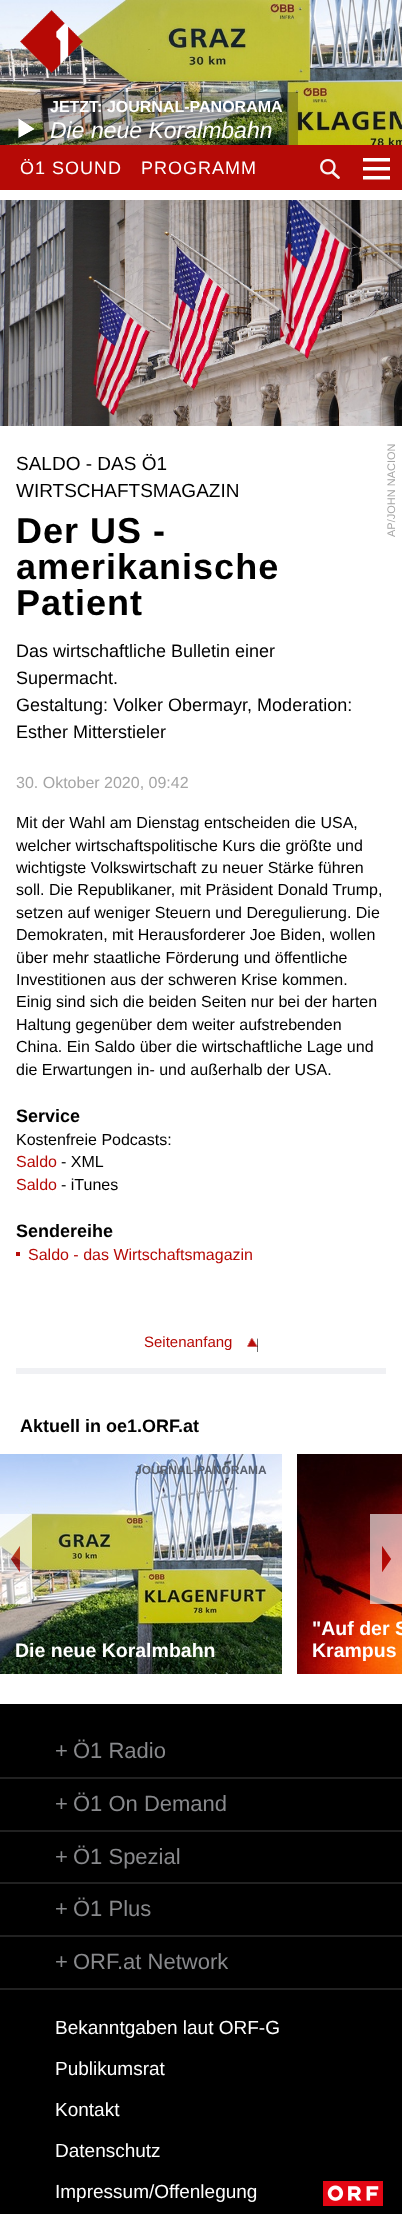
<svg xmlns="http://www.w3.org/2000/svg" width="402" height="2214">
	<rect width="100%" height="100%" fill="#FFFFFF" />
	<image x="0" y="0" width="402" height="145" href="assets/img2.png" />
	<image x="20" y="10" width="63" height="63" href="assets/img1.png" />
	<rect x="0" y="92" width="298" height="53" fill="#000000" fill-opacity="0.25" />
	<text x="50" y="112" font-family="Liberation Sans" font-size="16" font-weight="700" fill="#FFFFFF">JETZT: JOURNAL-PANORAMA</text>
	<image x="18" y="118" width="17" height="20" href="assets/img3.png" />
	<text x="50" y="138" font-family="Liberation Sans" font-size="23" font-style="italic" fill="#FFFFFF">Die neue Koralmbahn</text>
	<rect x="0" y="145" width="402" height="45" fill="#B60A06" />
	<g font-family="Liberation Sans" font-size="18" letter-spacing="1" fill="#FFFFFF">
		<text x="20" y="174">Ö1 SOUND</text>
		<text x="141" y="174">PROGRAMM</text>
	</g>
	<image x="320" y="159" width="20" height="20" href="assets/img4.png" />
	<image x="363" y="158" width="27" height="22" href="assets/img5.png" />
	<g font-family="Liberation Sans" font-size="19" fill="#000000">
		<text x="16" y="470">SALDO - DAS Ö1</text>
		<text x="16" y="497">WIRTSCHAFTSMAGAZIN</text>
	</g>
	<g font-family="Liberation Sans" font-size="36" font-weight="700" letter-spacing="1" fill="#000000">
		<text x="16" y="543">Der US -</text>
		<text x="16" y="579">amerikanische</text>
		<text x="16" y="615">Patient</text>
	</g>
	<g font-family="Liberation Sans" font-size="18" fill="#000000">
		<text x="16" y="657">Das wirtschaftliche Bulletin einer</text>
		<text x="16" y="684">Supermacht.</text>
		<text x="16" y="711">Gestaltung: Volker Obermayr, Moderation:</text>
		<text x="16" y="738">Esther Mitterstieler</text>
	</g>
	<image x="0" y="200" width="402" height="226" href="assets/img6.png" />
	<text x="395" y="537" transform="rotate(-90 395 537)" font-family="Liberation Sans" font-size="11" fill="#A5A5A5">AP/JOHN NACION</text>
	<text x="16" y="788" font-family="Liberation Sans" font-size="16" fill="#A5A5A5">30. Oktober 2020, 09:42</text>
	<g font-family="Liberation Sans" font-size="16" fill="#000000">
		<text x="16" y="828">Mit der Wahl am Dienstag entscheiden die USA,</text>
		<text x="16" y="851">welcher wirtschaftspolitische Kurs die größte und</text>
		<text x="16" y="873">wichtigste Volkswirtschaft zu neuer Stärke führen</text>
		<text x="16" y="895">soll. Die Republikaner, mit Präsident Donald Trump,</text>
		<text x="16" y="918">setzen auf weniger Steuern und Deregulierung. Die</text>
		<text x="16" y="940">Demokraten, mit Herausforderer Joe Biden, wollen</text>
		<text x="16" y="963">über mehr staatliche Förderung und öffentliche</text>
		<text x="16" y="985">Investitionen aus der schweren Krise kommen.</text>
		<text x="16" y="1007">Einig sind sich die beiden Seiten nur bei der harten</text>
		<text x="16" y="1030">Haltung gegenüber dem weiter aufstrebenden</text>
		<text x="16" y="1052">China. Ein Saldo über die wirtschaftliche Lage und</text>
		<text x="16" y="1075">die Erwartungen in- und außerhalb der USA.</text>
	</g>
	<text x="16" y="1122" font-family="Liberation Sans" font-size="18" font-weight="700" fill="#000000">Service</text>
	<text x="16" y="1145" font-family="Liberation Sans" font-size="16" fill="#000000">Kostenfreie Podcasts:</text>
	<text x="16" y="1167" font-family="Liberation Sans" font-size="16" fill="#B60A06">Saldo</text>
	<text x="61" y="1167" font-family="Liberation Sans" font-size="16" fill="#000000">- XML</text>
	<text x="16" y="1190" font-family="Liberation Sans" font-size="16" fill="#B60A06">Saldo</text>
	<text x="61" y="1190" font-family="Liberation Sans" font-size="16" fill="#000000">- iTunes</text>
	<text x="16" y="1237" font-family="Liberation Sans" font-size="18" font-weight="700" fill="#000000">Sendereihe</text>
	<rect x="16" y="1252" width="4" height="4" fill="#B70E0B" />
	<text x="28" y="1260" font-family="Liberation Sans" font-size="16" fill="#B60A06">Saldo - das Wirtschaftsmagazin</text>
	<text x="144" y="1347" font-family="Liberation Sans" font-size="15" fill="#B60A06">Seitenanfang</text>
	<image x="247" y="1338" width="11" height="14" href="assets/img7.png" />
	<rect x="16" y="1368" width="370" height="6" fill="#F0F1F4" />
	<text x="20" y="1432" font-family="Liberation Sans" font-size="18" font-weight="700" fill="#000000">Aktuell in oe1.ORF.at</text>
	<image x="0" y="1454" width="282" height="220" href="assets/img8.png" />
	<text x="135" y="1474" font-family="Liberation Sans" font-size="12" font-weight="700" fill="#59606D">JOURNAL-PANORAMA</text>
	<text x="15" y="1657" font-family="Liberation Sans" font-size="19.5" font-weight="700" fill="#FFFFFF">Die neue Koralmbahn</text>
	<image x="297" y="1454" width="105" height="220" href="assets/img9.png" />
	<g font-family="Liberation Sans" font-size="19.5" font-weight="700" fill="#FFFFFF">
		<text x="312" y="1635">"Auf der S</text>
		<text x="312" y="1657">Krampus</text>
	</g>
	<image x="0" y="1514" width="32" height="90" href="assets/img10.png" />
	<image x="370" y="1514" width="32" height="90" href="assets/img11.png" />
	<rect x="0" y="1704" width="402" height="510" fill="#000000" />
	<rect x="0" y="1777" width="402" height="2" fill="#212121" />
	<g font-family="Liberation Sans" font-size="22" fill="#88898C">
		<text x="55" y="1758">+</text>
		<text x="73" y="1758">Ö1 Radio</text>
	</g>
	<rect x="0" y="1830" width="402" height="2" fill="#212121" />
	<g font-family="Liberation Sans" font-size="22" fill="#88898C">
		<text x="55" y="1811">+</text>
		<text x="73" y="1811">Ö1 On Demand</text>
	</g>
	<rect x="0" y="1882" width="402" height="2" fill="#212121" />
	<g font-family="Liberation Sans" font-size="22" fill="#88898C">
		<text x="55" y="1864">+</text>
		<text x="73" y="1864">Ö1 Spezial</text>
	</g>
	<rect x="0" y="1935" width="402" height="2" fill="#212121" />
	<g font-family="Liberation Sans" font-size="22" fill="#88898C">
		<text x="55" y="1916">+</text>
		<text x="73" y="1916">Ö1 Plus</text>
	</g>
	<rect x="0" y="1988" width="402" height="2" fill="#212121" />
	<g font-family="Liberation Sans" font-size="22" fill="#88898C">
		<text x="55" y="1969">+</text>
		<text x="73" y="1969">ORF.at Network</text>
	</g>
	<g font-family="Liberation Sans" font-size="19" fill="#FFFFFF">
		<text x="55" y="2034">Bekanntgaben laut ORF-G</text>
		<text x="55" y="2075">Publikumsrat</text>
		<text x="55" y="2116">Kontakt</text>
		<text x="55" y="2157">Datenschutz</text>
		<text x="55" y="2198">Impressum/Offenlegung</text>
	</g>
	<image x="323" y="2181" width="60" height="25" href="assets/img12.png" />
</svg>
